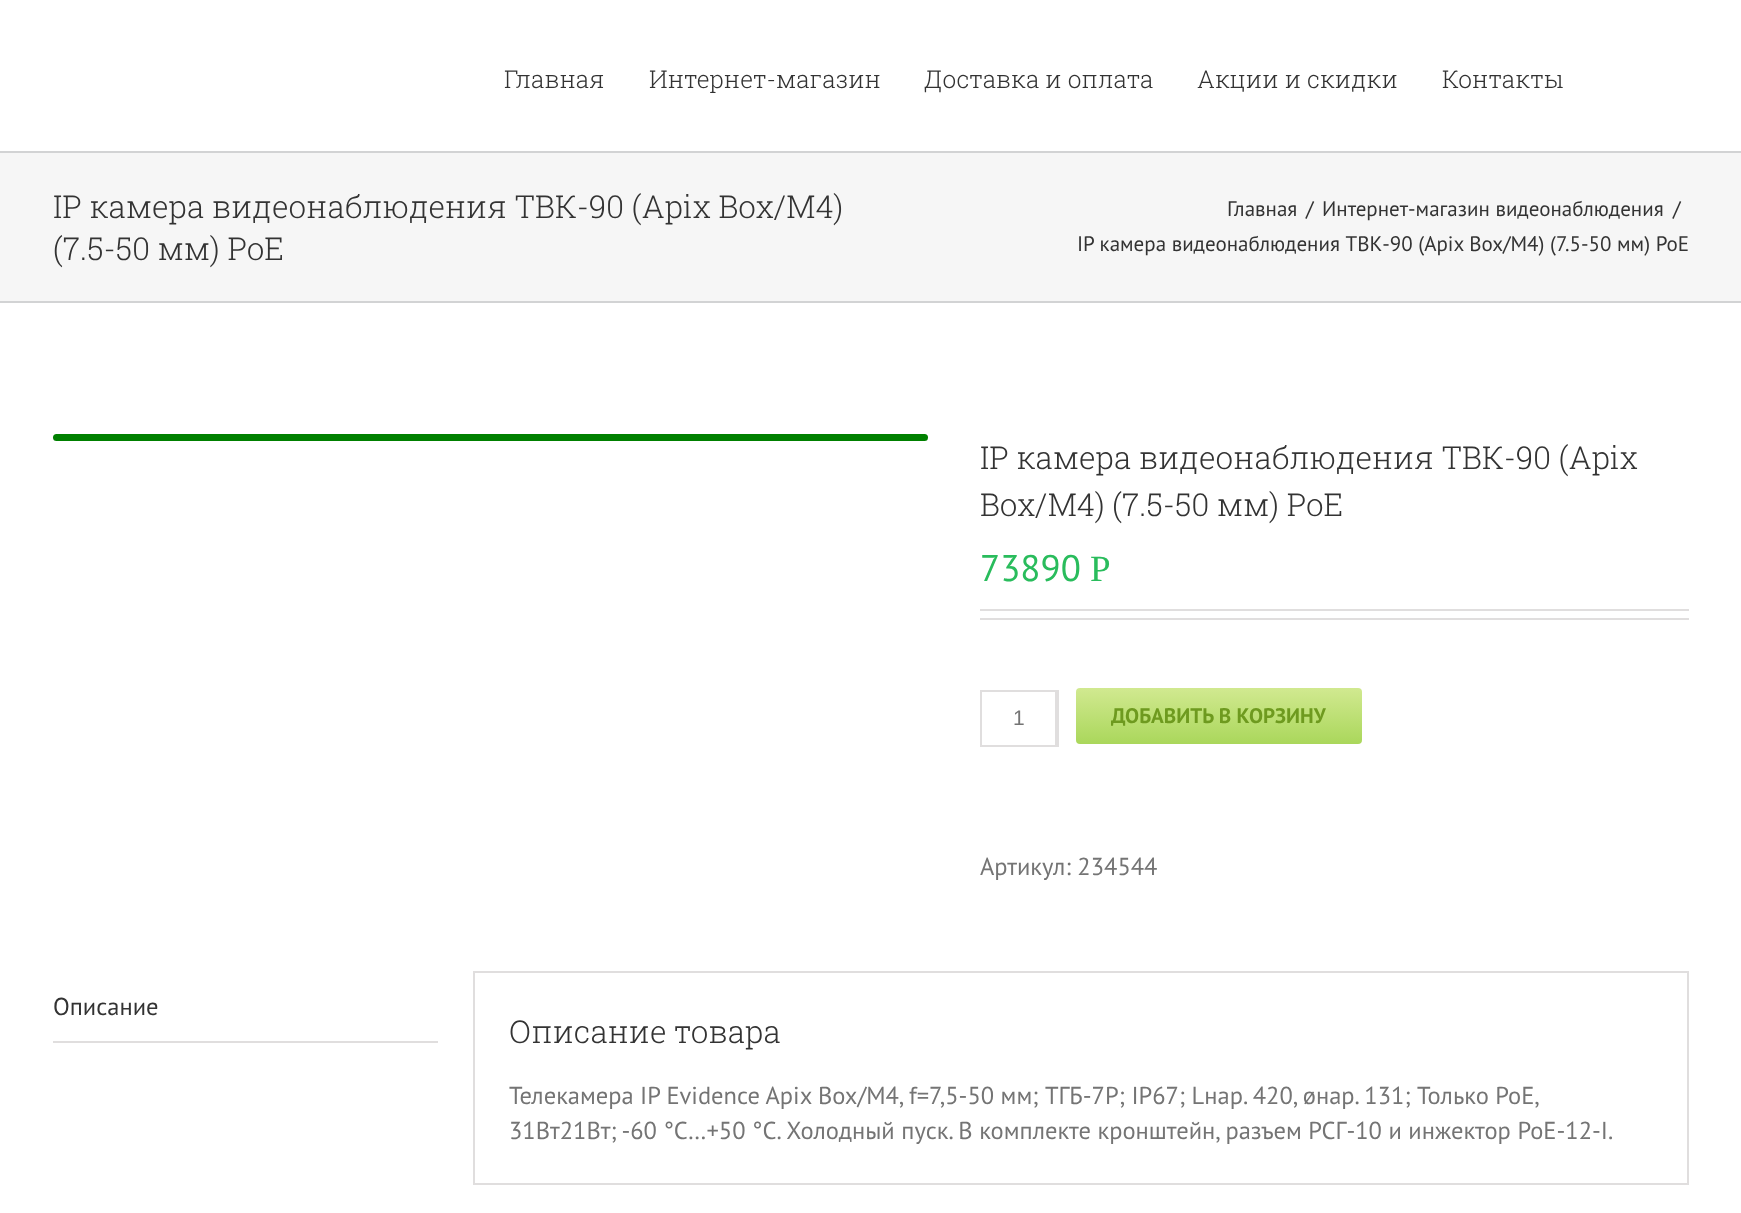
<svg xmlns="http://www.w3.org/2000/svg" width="1741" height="1213">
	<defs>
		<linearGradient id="g1" gradientUnits="userSpaceOnUse" x1="1219" y1="744" x2="1219" y2="688"><stop offset="0" stop-color="#AAD75B" /><stop offset="1" stop-color="#D1E990" /></linearGradient>
	</defs>
	<rect width="100%" height="100%" fill="#FFFFFF" />
	<g font-family="Roboto Slab" font-size="24.5" font-weight="300" fill="#333333">
		<text x="504" y="88">Главная</text>
		<text x="649" y="88">Интернет-магазин</text>
		<text x="924" y="88">Доставка и оплата</text>
		<text x="1197" y="88">Акции и скидки</text>
		<text x="1442" y="88">Контакты</text>
	</g>
	<rect x="0" y="153" width="1741" height="148" fill="#F6F6F6" />
	<rect x="0" y="151" width="1741" height="2" fill="#D2D3D4" />
	<rect x="0" y="301" width="1741" height="2" fill="#D2D3D4" />
	<g font-family="Roboto Slab" font-size="31.5" font-weight="300" fill="#333333">
		<text x="53" y="218">IP камера видеонаблюдения ТВК-90 (Apix Box/M4)</text>
		<text x="53" y="260">(7.5-50 мм) PoE</text>
	</g>
	<g font-family="PT Sans" font-size="21" fill="#333333">
		<text x="1227" y="216">Главная</text>
		<text x="1306" y="216">/</text>
		<text x="1322" y="216">Интернет-магазин видеонаблюдения</text>
		<text x="1673" y="216">/</text>
		<text x="1077" y="251">IP камера видеонаблюдения ТВК-90 (Apix Box/M4) (7.5-50 мм) PoE</text>
	</g>
	<rect x="53" y="434" width="875" height="7" rx="3.5" fill="#008000" />
	<g font-family="Roboto Slab" font-size="31.5" font-weight="300" fill="#333333">
		<text x="980" y="469">IP камера видеонаблюдения ТВК-90 (Apix</text>
		<text x="980" y="516">Box/M4) (7.5-50 мм) PoE</text>
	</g>
	<text x="980" y="581" font-family="PT Sans" font-size="37" fill="#29BC5C">73890</text>
	<text x="1090" y="581" font-family="Liberation Serif" font-size="37" fill="#29BC5C">Р</text>
	<rect x="980" y="609" width="709" height="2" fill="#E0DEDE" />
	<rect x="980" y="618" width="709" height="2" fill="#E0DEDE" />
	<rect x="981" y="691" width="77" height="55" fill="none" stroke="#E0DEDE" stroke-width="2" />
	<rect x="1055" y="691" width="2" height="55" fill="#E0DEDE" />
	<text x="1013" y="725" font-family="Liberation Sans" font-size="21" fill="#747474">1</text>
	<rect x="1076" y="688" width="286" height="56" rx="4" fill="url(#g1)" />
	<text x="1111" y="723" font-family="PT Sans" font-size="21" font-weight="700" fill="#6E9A1F">ДОБАВИТЬ В КОРЗИНУ</text>
	<text x="980" y="875" font-family="PT Sans" font-size="24.5" fill="#747474">Артикул: 234544</text>
	<rect x="53" y="1041" width="385" height="2" fill="#E0DEDE" />
	<text x="53" y="1015" font-family="PT Sans" font-size="24.5" fill="#333333">Описание</text>
	<rect x="474" y="972" width="1214" height="212" fill="none" stroke="#E0DEDE" stroke-width="2" />
	<text x="509" y="1043" font-family="Roboto Slab" font-size="31.5" font-weight="300" fill="#333333">Описание товара</text>
	<g font-family="PT Sans" font-size="24.5" fill="#747474">
		<text x="509" y="1104" word-spacing="-0.1">Телекамера IP Evidence Apix Box/M4, f=7,5-50 мм; ТГБ-7Р; IP67; Lнар. 420, øнар. 131; Только РоЕ,</text>
		<text x="509" y="1139">31Вт21Вт; -60 °С…+50 °С. Холодный пуск. В комплекте кронштейн, разъем РСГ-10 и инжектор PoE-12-I.</text>
	</g>
</svg>
